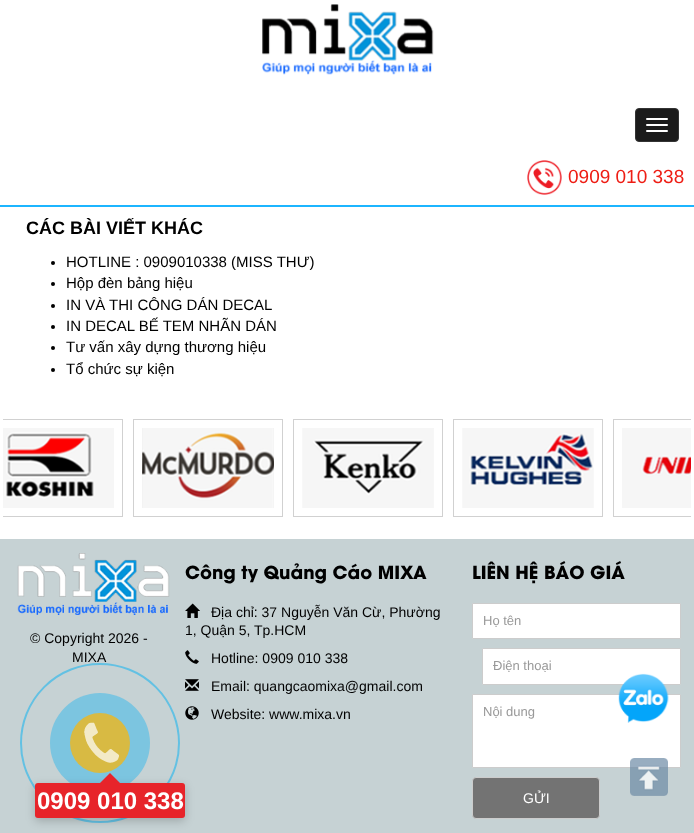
<svg xmlns="http://www.w3.org/2000/svg" width="694" height="833">
	<defs>
		<clipPath id="clip1"><rect x="3" y="419" width="688" height="98" /></clipPath>
	</defs>
	<rect width="100%" height="100%" fill="#FFFFFF" />
	<rect x="0" y="205" width="694" height="2" fill="#1CB5FF" />
	<image x="262" y="4" width="172" height="71" href="assets/img1.png" />
	<rect x="635.5" y="108.5" width="43" height="33" rx="3.5" fill="#1B1B1B" stroke="#333333" />
	<rect x="646" y="118" width="22" height="2" rx="1" fill="#FFFFFF" />
	<rect x="646" y="124" width="22" height="2" rx="1" fill="#FFFFFF" />
	<rect x="646" y="130" width="22" height="2" rx="1" fill="#FFFFFF" />
	<image x="527" y="160" width="35" height="35" href="assets/img2.png" />
	<text x="568" y="183" font-family="Liberation Sans" font-size="19" fill="#EE1D14">0909 010 338</text>
	<text x="26" y="234" font-family="Liberation Sans" font-size="18" font-weight="700" fill="#000000">CÁC BÀI VIẾT KHÁC</text>
	<circle cx="53" cy="263" r="2" fill="#000000" />
	<text x="66" y="267" font-family="Liberation Sans" font-size="15" fill="#000000">HOTLINE : 0909010338 (MISS THƯ)</text>
	<circle cx="53" cy="284" r="2" fill="#000000" />
	<text x="66" y="288" font-family="Liberation Sans" font-size="15" fill="#000000">Hộp đèn bảng hiệu</text>
	<circle cx="53" cy="306" r="2" fill="#000000" />
	<text x="66" y="310" font-family="Liberation Sans" font-size="15" fill="#000000">IN VÀ THI CÔNG DÁN DECAL</text>
	<circle cx="53" cy="327" r="2" fill="#000000" />
	<text x="66" y="331" font-family="Liberation Sans" font-size="15" fill="#000000">IN DECAL BẾ TEM NHÃN DÁN</text>
	<circle cx="53" cy="348" r="2" fill="#000000" />
	<text x="66" y="352" font-family="Liberation Sans" font-size="15" fill="#000000">Tư vấn xây dựng thương hiệu</text>
	<circle cx="53" cy="370" r="2" fill="#000000" />
	<text x="66" y="374" font-family="Liberation Sans" font-size="15" fill="#000000">Tổ chức sự kiện</text>
	<g clip-path="url(#clip1)">
		<rect x="-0.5" y="419.5" width="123" height="97" fill="none" stroke="#D1D1D1" />
	</g>
	<image x="3" y="428" width="111" height="80" href="assets/img3.png" />
	<rect x="133.5" y="419.5" width="149" height="97" fill="none" stroke="#D1D1D1" />
	<image x="142" y="428" width="132" height="80" href="assets/img4.png" />
	<rect x="293.5" y="419.5" width="149" height="97" fill="none" stroke="#D1D1D1" />
	<image x="302" y="428" width="132" height="80" href="assets/img5.png" />
	<rect x="453.5" y="419.5" width="149" height="97" fill="none" stroke="#D1D1D1" />
	<image x="462" y="428" width="132" height="80" href="assets/img6.png" />
	<g clip-path="url(#clip1)">
		<rect x="613.5" y="419.5" width="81" height="97" fill="none" stroke="#D1D1D1" />
	</g>
	<image x="622" y="428" width="69" height="80" href="assets/img7.png" />
	<rect x="0" y="539" width="694" height="294" fill="#C6D2D4" />
	<image x="17" y="553" width="153" height="62" href="assets/img8.png" />
	<g font-family="Liberation Sans" font-size="14" fill="#000000">
		<text x="30" y="643">© Copyright 2026 -</text>
		<text x="72" y="662">MIXA</text>
	</g>
	<text x="185" y="579" font-family="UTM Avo" font-size="18" font-weight="700" fill="#000000">Công ty Quảng Cáo MIXA</text>
	<image x="185" y="603" width="15" height="15" href="assets/img9.png" />
	<g font-family="Liberation Sans" font-size="14" fill="#000000">
		<text x="211" y="617">Địa chỉ: 37 Nguyễn Văn Cừ, Phường</text>
		<text x="185" y="635">1, Quận 5, Tp.HCM</text>
	</g>
	<image x="185" y="650" width="14" height="14" href="assets/img10.png" />
	<text x="211" y="663" font-family="Liberation Sans" font-size="14" fill="#000000">Hotline: 0909 010 338</text>
	<image x="185" y="679" width="14" height="12" href="assets/img11.png" />
	<text x="211" y="691" font-family="Liberation Sans" font-size="14" fill="#000000">Email: quangcaomixa@gmail.com</text>
	<image x="185" y="706" width="14" height="14" href="assets/img12.png" />
	<text x="211" y="719" font-family="Liberation Sans" font-size="14" fill="#000000">Website: www.mixa.vn</text>
	<text x="472" y="579" font-family="UTM Avo" font-size="18" font-weight="700" fill="#000000">LIÊN HỆ BÁO GIÁ</text>
	<rect x="472.5" y="603.5" width="208" height="35" rx="0.5" fill="#FFFFFF" stroke="#CCCCCC" />
	<text x="483" y="625" font-family="Liberation Sans" font-size="13" fill="#999999">Họ tên</text>
	<rect x="482.5" y="648.5" width="198" height="36" rx="0.5" fill="#FFFFFF" stroke="#CCCCCC" />
	<text x="493" y="670" font-family="Liberation Sans" font-size="13" fill="#999999">Điện thoại</text>
	<rect x="472.5" y="694.5" width="208" height="73" rx="0.5" fill="#FFFFFF" stroke="#CCCCCC" />
	<text x="483" y="716" font-family="Liberation Sans" font-size="13" fill="#999999">Nội dung</text>
	<rect x="472.5" y="777.5" width="127" height="41" rx="3.5" fill="#737373" stroke="#CCCCCC" />
	<text x="523" y="803" font-family="Liberation Sans" font-size="14" fill="#FFFFFF">GỬI</text>
	<image x="618" y="673" width="51" height="50" href="assets/img13.png" />
	<image x="630" y="758" width="38" height="38" href="assets/img14.png" />
	<circle cx="100" cy="743" r="79" fill="none" stroke="#63C1E3" stroke-width="2" />
	<circle cx="100" cy="743" r="50" fill="#7CC5E0" />
	<circle cx="100" cy="743" r="30" fill="#D8BA43" />
	<image x="84" y="722" width="35" height="41" href="assets/img15.png" />
	<rect x="35" y="786" width="150" height="35" rx="3" fill="#000000" fill-opacity="0.2" filter="blur(5px)" />
	<rect x="35" y="783" width="150" height="35" rx="3" fill="#E7242A" />
	<path d="M120 783H100L110 773Z" fill="#E7242A" />
	<text x="37" y="809" font-family="Liberation Sans" font-size="24" font-weight="700" fill="#FFFFFF">0909 010 338</text>
</svg>
